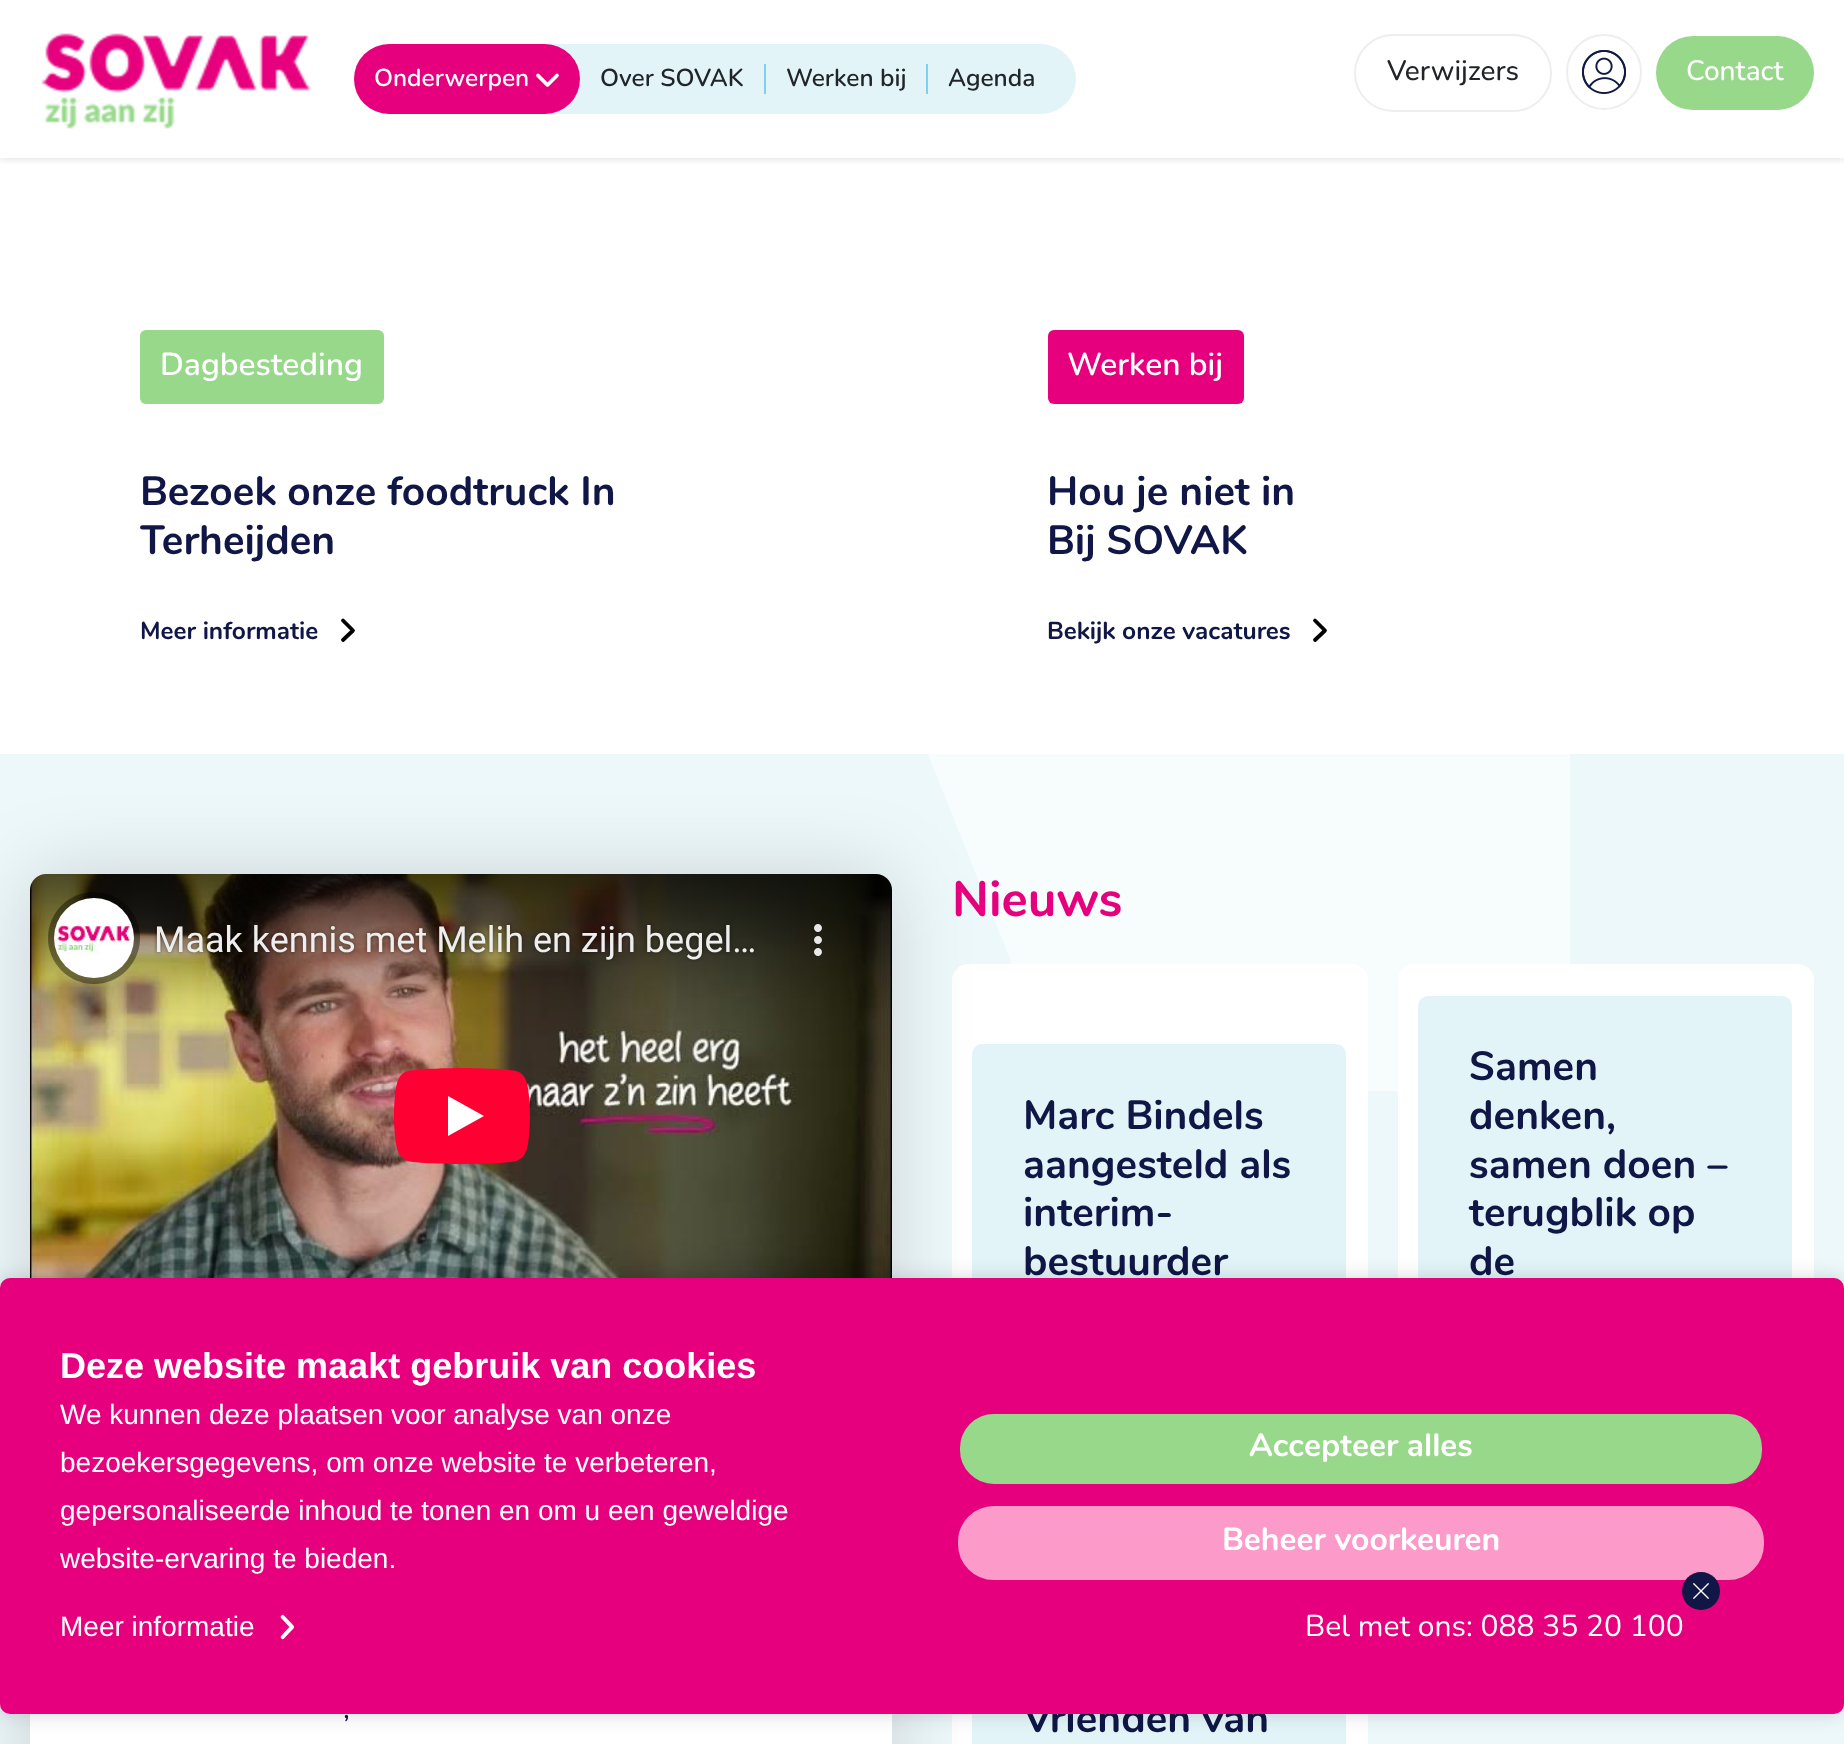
<svg xmlns="http://www.w3.org/2000/svg" width="1844" height="1744">
	<defs>
		<clipPath id="clip1"><rect x="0" y="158" width="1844" height="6" /></clipPath>
	</defs>
	<rect width="100%" height="100%" fill="#FFFFFF" />
	<g clip-path="url(#clip1)">
		<rect x="0" y="0" width="1844" height="158" fill="#000000" fill-opacity="0.15" filter="blur(5px)" />
	</g>
	<image x="41" y="33" width="270" height="96" href="assets/img1.png" />
	<rect x="354" y="44" width="722" height="70" rx="35" fill="#E2F4F8" />
	<rect x="354" y="44" width="226" height="70" rx="35" fill="#E6007E" />
	<text x="374" y="86" font-family="Nunito" font-size="24.5" font-weight="600" fill="#FFFFFF">Onderwerpen</text>
	<path d="M557 75.5L547.5 85L538 75.5" fill="none" stroke="#FFFFFF" stroke-width="3.8" stroke-linecap="round" stroke-linejoin="round" />
	<rect x="764" y="64" width="2" height="30" fill="#7ED0EE" />
	<text x="600" y="86" font-family="Nunito" font-size="24.5" font-weight="600" fill="#212529">Over SOVAK</text>
	<rect x="926" y="64" width="2" height="30" fill="#7ED0EE" />
	<g font-family="Nunito" font-size="24.5" font-weight="600" fill="#212529">
		<text x="786" y="86">Werken bij</text>
		<text x="948" y="86">Agenda</text>
	</g>
	<rect x="1355" y="35" width="196" height="76" rx="38" fill="none" stroke="#EEEEEE" stroke-width="2" />
	<text x="1387" y="80" font-family="Nunito" font-size="28" font-weight="500" fill="#212529">Verwijzers</text>
	<circle cx="1604" cy="72" r="37" fill="none" stroke="#EEEEEE" stroke-width="2" />
	<image x="1582" y="50" width="44" height="44" href="assets/img2.png" />
	<rect x="1656" y="36" width="158" height="74" rx="37" fill="#97D88A" />
	<text x="1686" y="80" font-family="Nunito" font-size="28" font-weight="500" fill="#FFFFFF">Contact</text>
	<rect x="140" y="330" width="244" height="74" rx="6" fill="#97D88A" />
	<text x="160" y="375" font-family="Nunito" font-size="31.75" font-weight="600" fill="#FFFFFF">Dagbesteding</text>
	<g font-family="Nunito" font-size="40.75" font-weight="700" fill="#101645">
		<text x="140" y="505">Bezoek onze foodtruck In</text>
		<text x="140" y="554">Terheijden</text>
	</g>
	<text x="140" y="639" font-family="Nunito" font-size="24.5" font-weight="700" fill="#101645">Meer informatie</text>
	<path d="M343 620.5L353 630.5L343 640" fill="none" stroke="#000000" stroke-width="3.8" stroke-linecap="round" stroke-linejoin="round" />
	<rect x="1048" y="330" width="196" height="74" rx="6" fill="#E6007E" />
	<text x="1067" y="375" font-family="Nunito" font-size="31.75" font-weight="600" fill="#FFFFFF">Werken bij</text>
	<g font-family="Nunito" font-size="40.75" font-weight="700" fill="#101645">
		<text x="1047" y="505">Hou je niet in</text>
		<text x="1047" y="554">Bij SOVAK</text>
	</g>
	<text x="1047" y="639" font-family="Nunito" font-size="24.5" font-weight="700" fill="#101645">Bekijk onze vacatures</text>
	<path d="M1315 620.5L1325 630.5L1315 640" fill="none" stroke="#000000" stroke-width="3.8" stroke-linecap="round" stroke-linejoin="round" />
	<rect x="0" y="754" width="1844" height="990" fill="#EDF8FB" />
	<path d="M1093 1091C1073 1087 1056 1073 1048 1053L924 745H1570V1085C1565 1088 1560 1090 1554 1091Z" fill="#FFFFFF" fill-opacity="0.54" />
	<rect x="952" y="964" width="416" height="524" rx="16" fill="#FFFFFF" />
	<rect x="952" y="1714" width="416" height="30" fill="#FFFFFF" />
	<rect x="30" y="874" width="862" height="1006" rx="16" fill="#000000" fill-opacity="0.15" filter="blur(40px)" />
	<rect x="30" y="874" width="862" height="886" rx="16" fill="#FFFFFF" />
	<image x="30" y="874" width="862" height="404" href="assets/img3.png" />
	<text x="343" y="1718" font-family="Nunito" font-size="30" fill="#101645">,</text>
	<text x="952" y="916" font-family="Nunito" font-size="49.5" font-weight="700" fill="#E6007E">Nieuws</text>
	<rect x="972" y="1044" width="374" height="414" rx="10" fill="#E2F4F8" />
	<g font-family="Nunito" font-size="40.75" font-weight="700" fill="#101645">
		<text x="1023" y="1129">Marc Bindels</text>
		<text x="1023" y="1178">aangesteld als</text>
		<text x="1023" y="1226">interim-</text>
		<text x="1023" y="1275">bestuurder</text>
	</g>
	<rect x="1398" y="964" width="416" height="524" rx="16" fill="#FFFFFF" />
	<rect x="1418" y="996" width="374" height="462" rx="10" fill="#E2F4F8" />
	<g font-family="Nunito" font-size="40.75" font-weight="700" fill="#101645">
		<text x="1469" y="1080">Samen</text>
		<text x="1469" y="1129">denken,</text>
		<text x="1469" y="1178">samen doen –</text>
		<text x="1469" y="1226">terugblik op</text>
		<text x="1469" y="1275">de</text>
	</g>
	<rect x="972" y="1714" width="374" height="30" fill="#E2F4F8" />
	<text x="1023" y="1732" font-family="Nunito" font-size="40.75" font-weight="700" fill="#101645">Vrienden van</text>
	<rect x="0" y="1278" width="1844" height="436" rx="10" fill="#000000" fill-opacity="0.15" filter="blur(10px)" />
	<rect x="0" y="1278" width="1844" height="436" rx="10" fill="#E6007E" />
	<text x="60" y="1378" font-family="Liberation Sans" font-size="36" font-weight="700" fill="#FFFFFF">Deze website maakt gebruik van cookies</text>
	<g font-family="Liberation Sans" font-size="28" fill="#FFFFFF">
		<text x="60" y="1424">We kunnen deze plaatsen voor analyse van onze</text>
		<text x="60" y="1472">bezoekersgegevens, om onze website te verbeteren,</text>
		<text x="60" y="1520">gepersonaliseerde inhoud te tonen en om u een geweldige</text>
		<text x="60" y="1568">website-ervaring te bieden.</text>
		<text x="60" y="1636">Meer informatie</text>
	</g>
	<image x="280" y="1614" width="14" height="26" href="assets/img4.png" />
	<rect x="959" y="1413" width="804" height="72" rx="35" fill="#97D88A" stroke="#E6007E" stroke-width="2" />
	<text x="1249" y="1456" font-family="Nunito" font-size="32" font-weight="700" fill="#FFFFFF">Accepteer alles</text>
	<rect x="959" y="1507" width="804" height="72" rx="35" fill="#FC9BC9" stroke="#FC9BC9" stroke-width="2" />
	<text x="1222" y="1550" font-family="Nunito" font-size="32" font-weight="700" fill="#FFFFFF">Beheer voorkeuren</text>
	<circle cx="1701" cy="1591" r="19" fill="#101645" />
	<image x="1693" y="1583" width="16" height="16" href="assets/img5.png" />
	<text x="1305" y="1636" font-family="Nunito" font-size="30" fill="#FFFFFF">Bel met ons: 088 35 20 100</text>
</svg>
